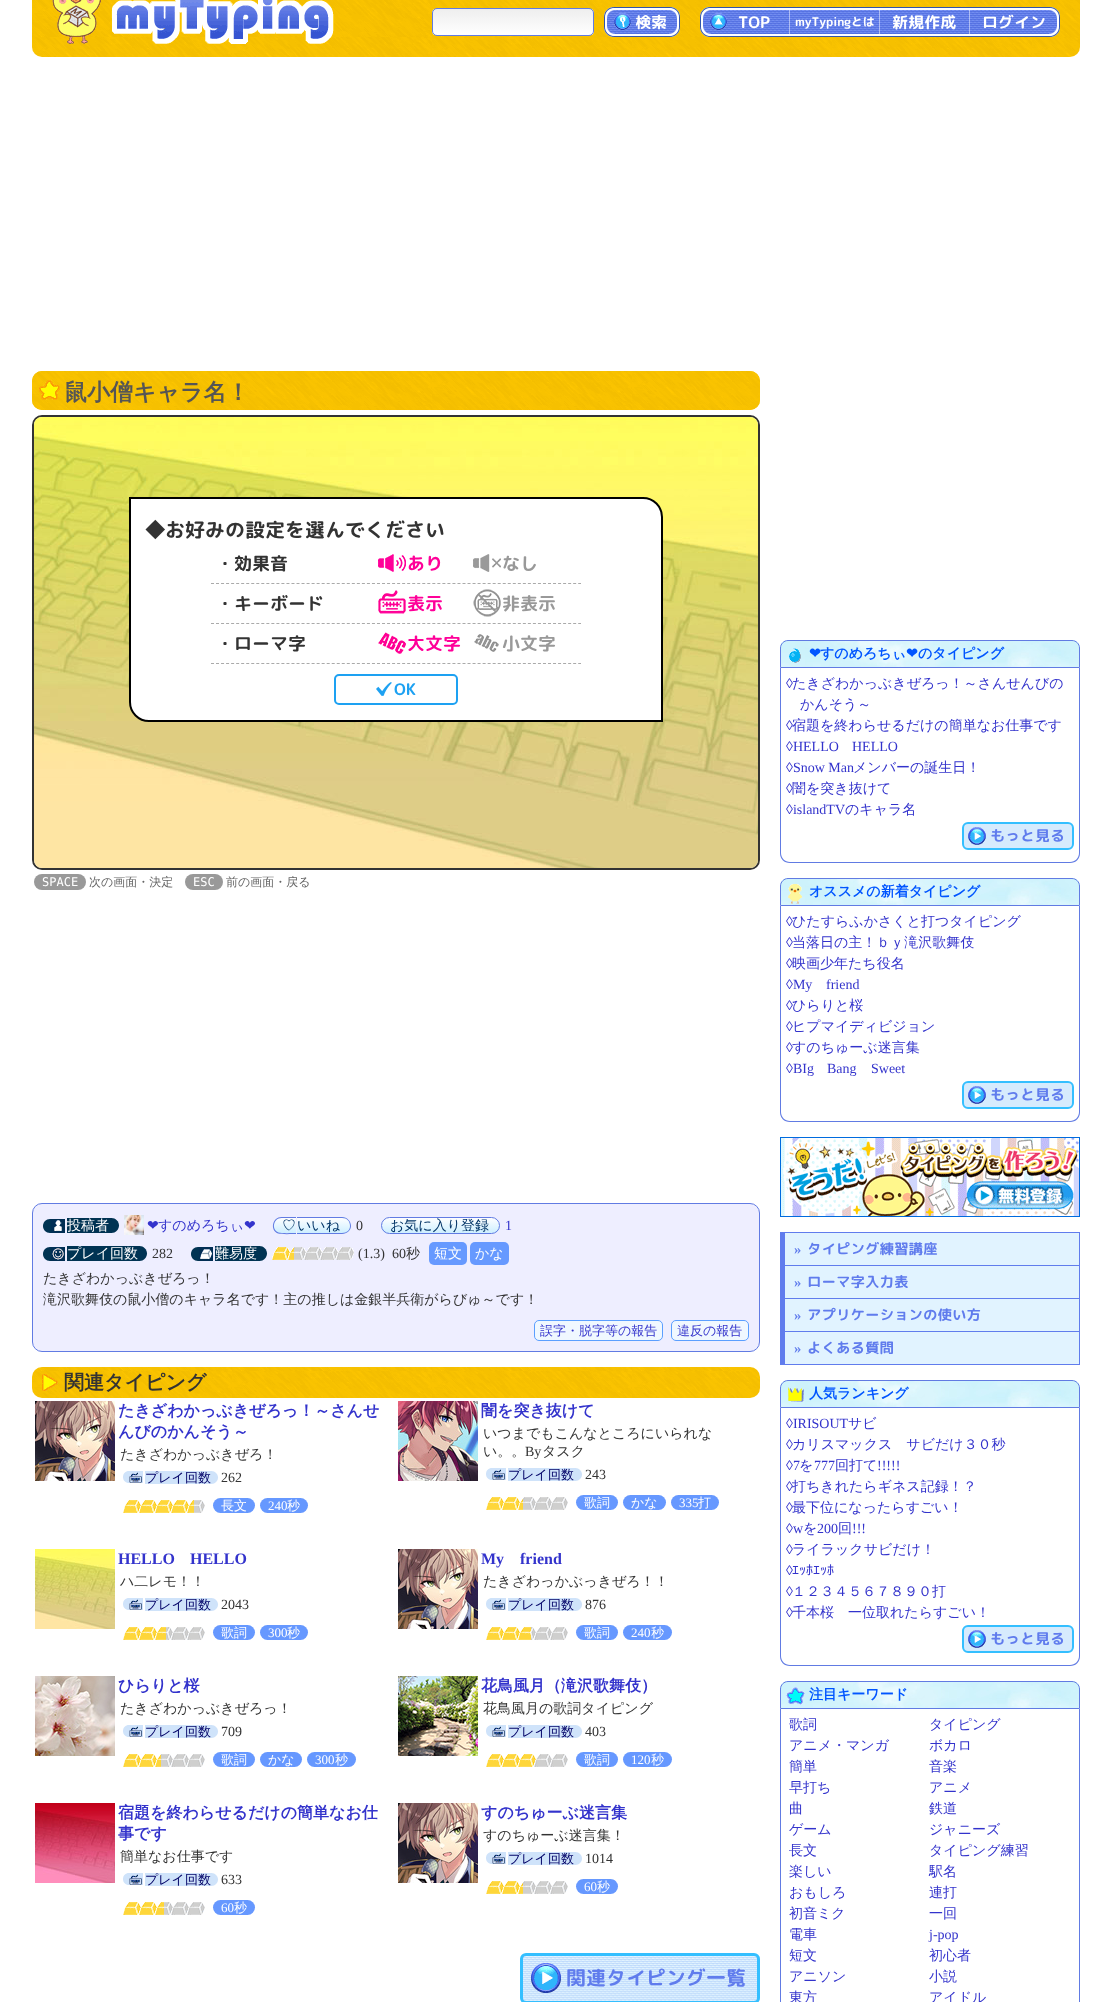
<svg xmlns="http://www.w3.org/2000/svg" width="1111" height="2002">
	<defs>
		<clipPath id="clip1"><rect x="432" y="8" width="162" height="28" rx="5" /></clipPath>
		<linearGradient id="g1" gradientUnits="userSpaceOnUse" x1="513" y1="9" x2="513" y2="35"><stop offset="0" stop-color="#EEEEEE" /><stop offset="1" stop-color="#FFFFFF" /></linearGradient>
		<clipPath id="clip2"><path d="M281.5 1217H296V1234H281.5C277 1234 273 1230 273 1225.5C273 1221 277 1217 281.5 1217Z" /></clipPath>
		<linearGradient id="g2" gradientUnits="userSpaceOnUse" x1="285" y1="1218" x2="285" y2="1233"><stop offset="0" stop-color="#FEFEFF" /><stop offset="1" stop-color="#CDEFFF" /></linearGradient>
		<clipPath id="clip3"><path d="M297 1217H342.5C347 1217 351 1221 351 1225.5C351 1230 347 1234 342.5 1234H297Z" /></clipPath>
		<linearGradient id="g3" gradientUnits="userSpaceOnUse" x1="324" y1="1218" x2="324" y2="1233"><stop offset="0" stop-color="#FEFEFF" /><stop offset="1" stop-color="#CDEFFF" /></linearGradient>
		<linearGradient id="g4" gradientUnits="userSpaceOnUse" x1="324" y1="1203" x2="324" y2="1218"><stop offset="0" stop-color="#FEFEFF" /><stop offset="1" stop-color="#CDEFFF" /></linearGradient>
		<clipPath id="clip4"><rect x="381" y="1217" width="119" height="17" rx="8.5" /></clipPath>
		<linearGradient id="g5" gradientUnits="userSpaceOnUse" x1="441" y1="1218" x2="441" y2="1233"><stop offset="0" stop-color="#FEFEFF" /><stop offset="1" stop-color="#CDEFFF" /></linearGradient>
	</defs>
	<rect width="100%" height="100%" fill="#FFFFFF" />
	<image x="32" y="0" width="1048" height="57" href="assets/img1.png" />
	<image x="52" y="0" width="282" height="44" href="assets/img2.png" />
	<g clip-path="url(#clip1)">
		<rect x="432" y="9" width="162" height="26" fill="url(#g1)" />
	</g>
	<rect x="432.5" y="8.5" width="161" height="27" rx="4.5" fill="none" stroke="#617BE3" />
	<image x="604" y="7" width="76" height="30" href="assets/img3.png" />
	<text x="635" y="28" font-family="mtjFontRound" font-size="16" font-weight="700" fill="#FFFFFF">検索</text>
	<image x="700" y="7" width="90" height="30" href="assets/img4.png" />
	<text x="738" y="28" font-family="mtjFontRound" font-size="16" font-weight="700" fill="#FFFFFF">TOP</text>
	<image x="790" y="7" width="90" height="30" href="assets/img5.png" />
	<text x="795" y="26" font-family="mtjFontRound" font-size="12" font-weight="700" fill="#FFFFFF">myTypingとは</text>
	<image x="880" y="7" width="90" height="30" href="assets/img5.png" />
	<text x="892" y="28" font-family="mtjFontRound" font-size="16" font-weight="700" fill="#FFFFFF">新規作成</text>
	<image x="970" y="7" width="90" height="30" href="assets/img6.png" />
	<text x="982" y="28" font-family="mtjFontRound" font-size="16" font-weight="700" fill="#FFFFFF">ログイン</text>
	<rect x="32" y="371" width="728" height="39" rx="10" fill="#FAC300" />
	<image x="32" y="371" width="728" height="39" href="assets/img7.png" />
	<image x="39" y="380" width="21" height="20" href="assets/img8.png" />
	<text x="64" y="400" font-family="WenQuanYi Zen Hei" font-size="23" font-weight="700" fill="#555555">鼠小僧キャラ名！</text>
	<rect x="33" y="416" width="726" height="453" rx="9" fill="none" stroke="#333333" stroke-width="2" />
	<image x="34" y="417" width="724" height="451" href="assets/img9.png" />
	<path d="M130 498H643C653.5 498 662 506.5 662 517V721H149C138.5 721 130 712.5 130 702Z" fill="#FFFFFF" stroke="#000000" stroke-width="2" />
	<text x="145" y="537" font-family="WenQuanYi Zen Hei" font-size="20" font-weight="700" fill="#333333">◆</text>
	<text x="165" y="537" font-family="mtjFontRound" font-size="20" font-weight="700" fill="#333333">お好みの設定を選んでください</text>
	<path d="M211 583.5H581" fill="none" stroke="#AAAAAA" stroke-dasharray="3 2.03" />
	<text x="216" y="570" font-family="mtjFontRound" font-size="18" font-weight="700" fill="#333333">・効果音</text>
	<image x="378" y="554" width="28" height="18" href="assets/img10.png" />
	<text x="407" y="570" font-family="mtjFontRound" font-size="18" font-weight="700" fill="#FF0099">あり</text>
	<image x="473" y="554" width="28" height="18" href="assets/img11.png" />
	<text x="502" y="570" font-family="mtjFontRound" font-size="18" font-weight="700" fill="#999999">なし</text>
	<path d="M211 623.5H581" fill="none" stroke="#AAAAAA" stroke-dasharray="3 2.03" />
	<text x="216" y="610" font-family="mtjFontRound" font-size="18" font-weight="700" fill="#333333">・キーボード</text>
	<image x="378" y="590" width="28" height="24" href="assets/img12.png" />
	<text x="407" y="610" font-family="mtjFontRound" font-size="18" font-weight="700" fill="#FF0099">表示</text>
	<image x="473" y="589" width="28" height="28" href="assets/img13.png" />
	<text x="502" y="610" font-family="mtjFontRound" font-size="18" font-weight="700" fill="#999999">非表示</text>
	<path d="M211 663.5H581" fill="none" stroke="#AAAAAA" stroke-dasharray="3 2.03" />
	<text x="216" y="650" font-family="mtjFontRound" font-size="18" font-weight="700" fill="#333333">・ローマ字</text>
	<image x="378" y="632" width="28" height="22" href="assets/img14.png" />
	<text x="407" y="650" font-family="mtjFontRound" font-size="18" font-weight="700" fill="#FF0099">大文字</text>
	<image x="474" y="634" width="25" height="18" href="assets/img15.png" />
	<text x="502" y="650" font-family="mtjFontRound" font-size="18" font-weight="700" fill="#999999">小文字</text>
	<rect x="335" y="675" width="122" height="29" rx="4" fill="none" stroke="#1DA1F2" stroke-width="2" />
	<image x="376" y="682" width="16" height="14" href="assets/img16.png" />
	<text x="394" y="695" font-family="mtjFontRound" font-size="16" font-weight="700" fill="#1DA1F2">OK</text>
	<rect x="34" y="874" width="52" height="16" rx="8" fill="#999999" />
	<text x="42" y="886" font-family="DejaVu Sans Mono" font-size="12" fill="#FFFFFF">SPACE</text>
	<text x="89" y="886" font-family="WenQuanYi Zen Hei" font-size="12" font-weight="500" fill="#666666">次の画面・決定</text>
	<rect x="185" y="874" width="38" height="16" rx="8" fill="#999999" />
	<text x="193" y="886" font-family="DejaVu Sans Mono" font-size="12" fill="#FFFFFF">ESC</text>
	<text x="226" y="886" font-family="WenQuanYi Zen Hei" font-size="12" font-weight="500" fill="#666666">前の画面・戻る</text>
	<rect x="32.5" y="1203.5" width="727" height="148" rx="9.5" fill="#EEEEFF" stroke="#617BE3" />
	<path d="M50 1219H65V1233H50C46 1233 43 1230 43 1226C43 1222 46 1219 50 1219Z" fill="#003353" />
	<path d="M67 1218H111.5C115.5 1218 119 1221.5 119 1225.5C119 1229.5 115.5 1233 111.5 1233H67Z" fill="#003353" />
	<image x="51" y="1219" width="14" height="14" href="assets/img17.png" />
	<text x="67" y="1230" font-family="WenQuanYi Zen Hei" font-size="14" font-weight="500" fill="#FFFFFF">投稿者</text>
	<image x="124" y="1215" width="20" height="20" href="assets/img18.png" />
	<text x="147" y="1230" font-family="DejaVu Sans" font-size="14" fill="#3333CC">❤</text>
	<text x="158" y="1230" font-family="WenQuanYi Zen Hei" font-size="14" font-weight="500" fill="#3333CC">すのめろちぃ</text>
	<text x="244" y="1230" font-family="DejaVu Sans" font-size="14" fill="#3333CC">❤</text>
	<g clip-path="url(#clip2)">
		<rect x="273" y="1218" width="23" height="15" fill="url(#g2)" />
	</g>
	<path d="M281.5 1217H296V1234C292 1234 281.5 1234.5 278 1233.5C269.5 1230 272.5 1217 281.5 1217ZM281.5 1218H296V1233C292 1233 281.5 1233.5 278.5 1232.5C271 1229.5 273.5 1218 281.5 1218Z" fill="#617BE3" fill-rule="evenodd" />
	<text x="282" y="1230" font-family="WenQuanYi Zen Hei" font-size="14" font-weight="500" fill="#003366">♡</text>
	<g clip-path="url(#clip3)">
		<rect x="297" y="1218" width="54" height="15" fill="url(#g3)" />
		<rect x="342" y="1217" width="9" height="1" fill="url(#g4)" />
	</g>
	<path d="M297 1217H342C347 1217 351 1221 351 1226C351 1230 347 1234 342 1234H297ZM297 1218H342C347 1218 350 1221 350 1226C350 1230 347 1233 342 1233H297Z" fill="#617BE3" fill-rule="evenodd" />
	<text x="297" y="1230" font-family="WenQuanYi Zen Hei" font-size="14" font-weight="500" fill="#003366">いいね</text>
	<text x="356" y="1230" font-family="Liberation Serif" font-size="14" fill="#333333">0</text>
	<g clip-path="url(#clip4)">
		<rect x="381" y="1218" width="119" height="15" fill="url(#g5)" />
	</g>
	<rect x="381.5" y="1217.5" width="118" height="16" rx="8" fill="none" stroke="#617BE3" />
	<text x="390" y="1230" font-family="WenQuanYi Zen Hei" font-size="14" font-weight="500" fill="#003366">お気に入り登録</text>
	<text x="505" y="1230" font-family="Liberation Serif" font-size="14" fill="#3333CC">1</text>
	<path d="M50 1247H65V1261H50C46 1261 43 1258 43 1254C43 1250 46 1247 50 1247Z" fill="#003353" />
	<path d="M67 1246H139.5C143.5 1246 147 1249.5 147 1253.5C147 1257.5 143.5 1261 139.5 1261H67Z" fill="#003353" />
	<image x="51" y="1247" width="14" height="14" href="assets/img19.png" />
	<text x="67" y="1258" font-family="WenQuanYi Zen Hei" font-size="14" font-weight="500" fill="#FFFFFF">プレイ回数</text>
	<text x="152" y="1258" font-family="Liberation Serif" font-size="14" fill="#333333">282</text>
	<path d="M198 1247H213V1261H198C194 1261 191 1258 191 1254C191 1250 194 1247 198 1247Z" fill="#003353" />
	<path d="M215 1246H259.5C263.5 1246 267 1249.5 267 1253.5C267 1257.5 263.5 1261 259.5 1261H215Z" fill="#003353" />
	<image x="199" y="1247" width="14" height="14" href="assets/img20.png" />
	<text x="215" y="1258" font-family="WenQuanYi Zen Hei" font-size="14" font-weight="500" fill="#FFFFFF">難易度</text>
	<image x="272" y="1247" width="18" height="13" href="assets/img21.png" />
	<image x="288" y="1247" width="18" height="13" href="assets/img22.png" />
	<image x="304" y="1247" width="18" height="13" href="assets/img23.png" />
	<image x="320" y="1247" width="18" height="13" href="assets/img23.png" />
	<image x="336" y="1247" width="18" height="13" href="assets/img23.png" />
	<g font-family="Liberation Serif" font-size="14" fill="#333333">
		<text x="358" y="1258">(1.3)</text>
		<text x="392" y="1258">60</text>
	</g>
	<text x="406" y="1258" font-family="WenQuanYi Zen Hei" font-size="14" font-weight="500" fill="#333333">秒</text>
	<rect x="429" y="1242" width="38" height="23" rx="5" fill="#6699FF" />
	<text x="434" y="1258" font-family="WenQuanYi Zen Hei" font-size="14" font-weight="500" fill="#FFFFFF">短文</text>
	<rect x="470" y="1242" width="39" height="23" rx="5" fill="#6699FF" />
	<text x="475" y="1258" font-family="WenQuanYi Zen Hei" font-size="14" font-weight="500" fill="#FFFFFF">かな</text>
	<g font-family="WenQuanYi Zen Hei" font-size="14" font-weight="500" fill="#333333">
		<text x="43" y="1283">たきざわかっぶきぜろっ！</text>
		<text x="43" y="1304">滝沢歌舞伎の鼠小僧のキャラ名です！主の推しは金銀半兵衛がらびゅ～です！</text>
	</g>
	<rect x="534.5" y="1320.5" width="128" height="20" rx="4.5" fill="#F0F8FF" stroke="#5B9FFF" />
	<text x="540" y="1335" font-family="WenQuanYi Zen Hei" font-size="13" font-weight="500" fill="#3333CC">誤字・脱字等の報告</text>
	<rect x="671.5" y="1320.5" width="77" height="20" rx="4.5" fill="#F0F8FF" stroke="#5B9FFF" />
	<text x="677" y="1335" font-family="WenQuanYi Zen Hei" font-size="13" font-weight="500" fill="#3333CC">違反の報告</text>
	<image x="32" y="1367" width="728" height="31" href="assets/img24.png" />
	<image x="42" y="1374" width="16" height="17" href="assets/img25.png" />
	<text x="64" y="1389" font-family="WenQuanYi Zen Hei" font-size="20" font-weight="700" fill="#333333">関連タイピング</text>
	<image x="35" y="1401" width="80" height="80" href="assets/img26.png" />
	<g font-family="WenQuanYi Zen Hei" font-size="16" font-weight="700" fill="#3333CC">
		<text x="118" y="1416">たきざわかっぶきぜろっ！～さんせ</text>
		<text x="118" y="1437">んびのかんそう～</text>
	</g>
	<text x="120" y="1459" font-family="WenQuanYi Zen Hei" font-size="14" font-weight="500" fill="#333333">たきざわかっぶきぜろ！</text>
	<path d="M129 1471H143V1483H129C125.5 1483 123 1480.5 123 1477C123 1473.5 125.5 1471 129 1471Z" fill="#CFE3FA" />
	<path d="M145 1471H211.5C215 1471 218 1474 218 1477.5C218 1481 215 1484 211.5 1484H145Z" fill="#CFE3FA" />
	<image x="129" y="1472" width="14" height="11" href="assets/img27.png" />
	<text x="145" y="1482" font-family="WenQuanYi Zen Hei" font-size="13" font-weight="500" fill="#000066">プレイ回数</text>
	<text x="221" y="1482" font-family="Liberation Serif" font-size="14" fill="#333333">262</text>
	<image x="123" y="1500" width="18" height="13" href="assets/img28.png" />
	<image x="139" y="1500" width="18" height="13" href="assets/img29.png" />
	<image x="155" y="1500" width="18" height="13" href="assets/img29.png" />
	<image x="171" y="1500" width="18" height="13" href="assets/img29.png" />
	<image x="187" y="1500" width="18" height="13" href="assets/img30.png" />
	<rect x="213" y="1498" width="42" height="15" rx="7.5" fill="#6698FF" />
	<text x="221" y="1510" font-family="WenQuanYi Zen Hei" font-size="13" font-weight="500" fill="#FFFFFF">長文</text>
	<rect x="260" y="1498" width="48" height="15" rx="7.5" fill="#6698FF" />
	<text x="268" y="1510" font-family="Liberation Serif" font-size="13" fill="#FFFFFF">240</text>
	<text x="287" y="1510" font-family="WenQuanYi Zen Hei" font-size="13" font-weight="500" fill="#FFFFFF">秒</text>
	<image x="398" y="1401" width="80" height="80" href="assets/img31.png" />
	<text x="481" y="1416" font-family="WenQuanYi Zen Hei" font-size="16" font-weight="700" fill="#3333CC">闇を突き抜けて</text>
	<g font-family="WenQuanYi Zen Hei" font-size="14" font-weight="500" fill="#333333">
		<text x="483" y="1438">いつまでもこんなところにいられな</text>
		<text x="483" y="1456">い。。</text>
	</g>
	<text x="525" y="1456" font-family="Liberation Serif" font-size="14" fill="#333333">By</text>
	<text x="542" y="1456" font-family="WenQuanYi Zen Hei" font-size="14" font-weight="500" fill="#333333">タスク</text>
	<path d="M492 1468H506V1480H492C488.5 1480 486 1477.5 486 1474C486 1470.5 488.5 1468 492 1468Z" fill="#CFE3FA" />
	<path d="M508 1468H575.5C579 1468 582 1471 582 1474.5C582 1478 579 1481 575.5 1481H508Z" fill="#CFE3FA" />
	<image x="492" y="1469" width="14" height="11" href="assets/img27.png" />
	<text x="508" y="1479" font-family="WenQuanYi Zen Hei" font-size="13" font-weight="500" fill="#000066">プレイ回数</text>
	<text x="585" y="1479" font-family="Liberation Serif" font-size="14" fill="#333333">243</text>
	<image x="486" y="1497" width="18" height="13" href="assets/img28.png" />
	<image x="502" y="1497" width="18" height="13" href="assets/img29.png" />
	<image x="518" y="1497" width="18" height="13" href="assets/img32.png" />
	<image x="534" y="1497" width="18" height="13" href="assets/img33.png" />
	<image x="550" y="1497" width="18" height="13" href="assets/img33.png" />
	<rect x="576" y="1495" width="42" height="15" rx="7.5" fill="#6698FF" />
	<text x="584" y="1507" font-family="WenQuanYi Zen Hei" font-size="13" font-weight="500" fill="#FFFFFF">歌詞</text>
	<rect x="623" y="1495" width="43" height="15" rx="7.5" fill="#6698FF" />
	<text x="631" y="1507" font-family="WenQuanYi Zen Hei" font-size="13" font-weight="500" fill="#FFFFFF">かな</text>
	<rect x="671" y="1495" width="48" height="15" rx="7.5" fill="#6698FF" />
	<text x="679" y="1507" font-family="Liberation Serif" font-size="13" fill="#FFFFFF">335</text>
	<text x="698" y="1507" font-family="WenQuanYi Zen Hei" font-size="13" font-weight="500" fill="#FFFFFF">打</text>
	<image x="35" y="1549" width="80" height="80" href="assets/img34.png" />
	<g font-family="Liberation Serif" font-size="16" font-weight="700" fill="#3333CC">
		<text x="118" y="1564">HELLO</text>
		<text x="190" y="1564">HELLO</text>
	</g>
	<text x="120" y="1586" font-family="WenQuanYi Zen Hei" font-size="14" font-weight="500" fill="#333333">ハ二レモ！！</text>
	<path d="M129 1598H143V1610H129C125.5 1610 123 1607.5 123 1604C123 1600.5 125.5 1598 129 1598Z" fill="#CFE3FA" />
	<path d="M145 1598H211.5C215 1598 218 1601 218 1604.5C218 1608 215 1611 211.5 1611H145Z" fill="#CFE3FA" />
	<image x="129" y="1599" width="14" height="11" href="assets/img27.png" />
	<text x="145" y="1609" font-family="WenQuanYi Zen Hei" font-size="13" font-weight="500" fill="#000066">プレイ回数</text>
	<text x="221" y="1609" font-family="Liberation Serif" font-size="14" fill="#333333">2043</text>
	<image x="123" y="1627" width="18" height="13" href="assets/img28.png" />
	<image x="139" y="1627" width="18" height="13" href="assets/img29.png" />
	<image x="155" y="1627" width="18" height="13" href="assets/img35.png" />
	<image x="171" y="1627" width="18" height="13" href="assets/img33.png" />
	<image x="187" y="1627" width="18" height="13" href="assets/img33.png" />
	<rect x="213" y="1625" width="42" height="15" rx="7.5" fill="#6698FF" />
	<text x="221" y="1637" font-family="WenQuanYi Zen Hei" font-size="13" font-weight="500" fill="#FFFFFF">歌詞</text>
	<rect x="260" y="1625" width="48" height="15" rx="7.5" fill="#6698FF" />
	<text x="268" y="1637" font-family="Liberation Serif" font-size="13" fill="#FFFFFF">300</text>
	<text x="287" y="1637" font-family="WenQuanYi Zen Hei" font-size="13" font-weight="500" fill="#FFFFFF">秒</text>
	<image x="398" y="1549" width="80" height="80" href="assets/img26.png" />
	<g font-family="Liberation Serif" font-size="16" font-weight="700" fill="#3333CC">
		<text x="481" y="1564">My</text>
		<text x="520" y="1564">friend</text>
	</g>
	<text x="483" y="1586" font-family="WenQuanYi Zen Hei" font-size="14" font-weight="500" fill="#333333">たきざわっかぶっきぜろ！！</text>
	<path d="M492 1598H506V1610H492C488.5 1610 486 1607.5 486 1604C486 1600.5 488.5 1598 492 1598Z" fill="#CFE3FA" />
	<path d="M508 1598H575.5C579 1598 582 1601 582 1604.5C582 1608 579 1611 575.5 1611H508Z" fill="#CFE3FA" />
	<image x="492" y="1599" width="14" height="11" href="assets/img27.png" />
	<text x="508" y="1609" font-family="WenQuanYi Zen Hei" font-size="13" font-weight="500" fill="#000066">プレイ回数</text>
	<text x="585" y="1609" font-family="Liberation Serif" font-size="14" fill="#333333">876</text>
	<image x="486" y="1627" width="18" height="13" href="assets/img28.png" />
	<image x="502" y="1627" width="18" height="13" href="assets/img29.png" />
	<image x="518" y="1627" width="18" height="13" href="assets/img36.png" />
	<image x="534" y="1627" width="18" height="13" href="assets/img33.png" />
	<image x="550" y="1627" width="18" height="13" href="assets/img33.png" />
	<rect x="576" y="1625" width="42" height="15" rx="7.5" fill="#6698FF" />
	<text x="584" y="1637" font-family="WenQuanYi Zen Hei" font-size="13" font-weight="500" fill="#FFFFFF">歌詞</text>
	<rect x="623" y="1625" width="49" height="15" rx="7.5" fill="#6698FF" />
	<text x="631" y="1637" font-family="Liberation Serif" font-size="13" fill="#FFFFFF">240</text>
	<text x="651" y="1637" font-family="WenQuanYi Zen Hei" font-size="13" font-weight="500" fill="#FFFFFF">秒</text>
	<image x="35" y="1676" width="80" height="80" href="assets/img37.png" />
	<text x="118" y="1691" font-family="WenQuanYi Zen Hei" font-size="16" font-weight="700" fill="#3333CC">ひらりと桜</text>
	<text x="120" y="1713" font-family="WenQuanYi Zen Hei" font-size="14" font-weight="500" fill="#333333">たきざわかっぶきぜろっ！</text>
	<path d="M129 1725H143V1737H129C125.5 1737 123 1734.5 123 1731C123 1727.5 125.5 1725 129 1725Z" fill="#CFE3FA" />
	<path d="M145 1725H211.5C215 1725 218 1728 218 1731.5C218 1735 215 1738 211.5 1738H145Z" fill="#CFE3FA" />
	<image x="129" y="1726" width="14" height="11" href="assets/img27.png" />
	<text x="145" y="1736" font-family="WenQuanYi Zen Hei" font-size="13" font-weight="500" fill="#000066">プレイ回数</text>
	<text x="221" y="1736" font-family="Liberation Serif" font-size="14" fill="#333333">709</text>
	<image x="123" y="1754" width="18" height="13" href="assets/img28.png" />
	<image x="139" y="1754" width="18" height="13" href="assets/img29.png" />
	<image x="155" y="1754" width="18" height="13" href="assets/img38.png" />
	<image x="171" y="1754" width="18" height="13" href="assets/img33.png" />
	<image x="187" y="1754" width="18" height="13" href="assets/img33.png" />
	<rect x="213" y="1752" width="42" height="15" rx="7.5" fill="#6698FF" />
	<text x="221" y="1764" font-family="WenQuanYi Zen Hei" font-size="13" font-weight="500" fill="#FFFFFF">歌詞</text>
	<rect x="260" y="1752" width="42" height="15" rx="7.5" fill="#6698FF" />
	<text x="268" y="1764" font-family="WenQuanYi Zen Hei" font-size="13" font-weight="500" fill="#FFFFFF">かな</text>
	<rect x="307" y="1752" width="49" height="15" rx="7.5" fill="#6698FF" />
	<text x="315" y="1764" font-family="Liberation Serif" font-size="13" fill="#FFFFFF">300</text>
	<text x="335" y="1764" font-family="WenQuanYi Zen Hei" font-size="13" font-weight="500" fill="#FFFFFF">秒</text>
	<image x="398" y="1676" width="80" height="80" href="assets/img39.png" />
	<text x="481" y="1691" font-family="WenQuanYi Zen Hei" font-size="16" font-weight="700" fill="#3333CC">花鳥風月（滝沢歌舞伎）</text>
	<text x="483" y="1713" font-family="WenQuanYi Zen Hei" font-size="14" font-weight="500" fill="#333333">花鳥風月の歌詞タイピング</text>
	<path d="M492 1725H506V1737H492C488.5 1737 486 1734.5 486 1731C486 1727.5 488.5 1725 492 1725Z" fill="#CFE3FA" />
	<path d="M508 1725H575.5C579 1725 582 1728 582 1731.5C582 1735 579 1738 575.5 1738H508Z" fill="#CFE3FA" />
	<image x="492" y="1726" width="14" height="11" href="assets/img27.png" />
	<text x="508" y="1736" font-family="WenQuanYi Zen Hei" font-size="13" font-weight="500" fill="#000066">プレイ回数</text>
	<text x="585" y="1736" font-family="Liberation Serif" font-size="14" fill="#333333">403</text>
	<image x="486" y="1754" width="18" height="13" href="assets/img28.png" />
	<image x="502" y="1754" width="18" height="13" href="assets/img29.png" />
	<image x="518" y="1754" width="18" height="13" href="assets/img29.png" />
	<image x="534" y="1754" width="18" height="13" href="assets/img40.png" />
	<image x="550" y="1754" width="18" height="13" href="assets/img33.png" />
	<rect x="576" y="1752" width="42" height="15" rx="7.5" fill="#6698FF" />
	<text x="584" y="1764" font-family="WenQuanYi Zen Hei" font-size="13" font-weight="500" fill="#FFFFFF">歌詞</text>
	<rect x="623" y="1752" width="49" height="15" rx="7.5" fill="#6698FF" />
	<text x="631" y="1764" font-family="Liberation Serif" font-size="13" fill="#FFFFFF">120</text>
	<text x="651" y="1764" font-family="WenQuanYi Zen Hei" font-size="13" font-weight="500" fill="#FFFFFF">秒</text>
	<image x="35" y="1803" width="80" height="80" href="assets/img41.png" />
	<g font-family="WenQuanYi Zen Hei" font-size="16" font-weight="700" fill="#3333CC">
		<text x="118" y="1818">宿題を終わらせるだけの簡単なお仕</text>
		<text x="118" y="1839">事です</text>
	</g>
	<text x="120" y="1861" font-family="WenQuanYi Zen Hei" font-size="14" font-weight="500" fill="#333333">簡単なお仕事です</text>
	<path d="M129 1873H143V1885H129C125.5 1885 123 1882.5 123 1879C123 1875.5 125.5 1873 129 1873Z" fill="#CFE3FA" />
	<path d="M145 1873H211.5C215 1873 218 1876 218 1879.5C218 1883 215 1886 211.5 1886H145Z" fill="#CFE3FA" />
	<image x="129" y="1874" width="14" height="11" href="assets/img27.png" />
	<text x="145" y="1884" font-family="WenQuanYi Zen Hei" font-size="13" font-weight="500" fill="#000066">プレイ回数</text>
	<text x="221" y="1884" font-family="Liberation Serif" font-size="14" fill="#333333">633</text>
	<image x="123" y="1902" width="18" height="13" href="assets/img28.png" />
	<image x="139" y="1902" width="18" height="13" href="assets/img29.png" />
	<image x="155" y="1902" width="18" height="13" href="assets/img42.png" />
	<image x="171" y="1902" width="18" height="13" href="assets/img33.png" />
	<image x="187" y="1902" width="18" height="13" href="assets/img33.png" />
	<rect x="213" y="1900" width="42" height="15" rx="7.5" fill="#6698FF" />
	<text x="221" y="1912" font-family="Liberation Serif" font-size="13" fill="#FFFFFF">60</text>
	<text x="234" y="1912" font-family="WenQuanYi Zen Hei" font-size="13" font-weight="500" fill="#FFFFFF">秒</text>
	<image x="398" y="1803" width="80" height="80" href="assets/img26.png" />
	<text x="481" y="1818" font-family="WenQuanYi Zen Hei" font-size="16" font-weight="700" fill="#3333CC">すのちゅーぶ迷言集</text>
	<text x="483" y="1840" font-family="WenQuanYi Zen Hei" font-size="14" font-weight="500" fill="#333333">すのちゅーぶ迷言集！</text>
	<path d="M492 1852H506V1864H492C488.5 1864 486 1861.5 486 1858C486 1854.5 488.5 1852 492 1852Z" fill="#CFE3FA" />
	<path d="M508 1852H575.5C579 1852 582 1855 582 1858.5C582 1862 579 1865 575.5 1865H508Z" fill="#CFE3FA" />
	<image x="492" y="1853" width="14" height="11" href="assets/img27.png" />
	<text x="508" y="1863" font-family="WenQuanYi Zen Hei" font-size="13" font-weight="500" fill="#000066">プレイ回数</text>
	<text x="585" y="1863" font-family="Liberation Serif" font-size="14" fill="#333333">1014</text>
	<image x="486" y="1881" width="18" height="13" href="assets/img28.png" />
	<image x="502" y="1881" width="18" height="13" href="assets/img29.png" />
	<image x="518" y="1881" width="18" height="13" href="assets/img32.png" />
	<image x="534" y="1881" width="18" height="13" href="assets/img33.png" />
	<image x="550" y="1881" width="18" height="13" href="assets/img33.png" />
	<rect x="576" y="1879" width="42" height="15" rx="7.5" fill="#6698FF" />
	<text x="584" y="1891" font-family="Liberation Serif" font-size="13" fill="#FFFFFF">60</text>
	<text x="597" y="1891" font-family="WenQuanYi Zen Hei" font-size="13" font-weight="500" fill="#FFFFFF">秒</text>
	<image x="523" y="1956" width="237" height="46" href="assets/img43.png" />
	<rect x="521.5" y="1954.5" width="237" height="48" rx="4.5" fill="none" stroke="#34BFFF" stroke-width="3" />
	<image x="531" y="1963" width="30" height="30" href="assets/img44.png" />
	<text x="566" y="1985" font-family="mtjFontRound" font-size="20" font-weight="700" fill="#607CED">関連タイピング一覧</text>
	<image x="780" y="640" width="300" height="27" href="assets/img45.png" />
	<path d="M788 640.5H1072C1076 640.5 1079.5 644 1079.5 648V667.5H780.5V648C780.5 644 784 640.5 788 640.5Z" fill="none" stroke="#617BE3" />
	<image x="789" y="648" width="12" height="15" href="assets/img46.png" />
	<text x="809" y="658" font-family="DejaVu Sans" font-size="14" font-weight="700" fill="#0055FF">❤</text>
	<text x="820" y="658" font-family="WenQuanYi Zen Hei" font-size="14" font-weight="700" fill="#0055FF">すのめろちぃ</text>
	<text x="906" y="658" font-family="DejaVu Sans" font-size="14" font-weight="700" fill="#0055FF">❤</text>
	<text x="918" y="658" font-family="WenQuanYi Zen Hei" font-size="14" font-weight="700" fill="#0055FF">のタイピング</text>
	<path d="M780 668H1080V853C1080 859 1076 863 1070 863H790C784 863 780 859 780 853ZM781 668H1079V853C1079 858 1075 862 1070 862H790C785 862 781 858 781 853Z" fill="#617BE3" fill-rule="evenodd" />
	<text x="786" y="688" font-family="Liberation Serif" font-size="14" fill="#3333CC">◊</text>
	<g font-family="WenQuanYi Zen Hei" font-size="14" font-weight="500" fill="#3333CC">
		<text x="792" y="688">たきざわかっぶきぜろっ！～さんせんびの</text>
		<text x="800" y="709">かんそう～</text>
	</g>
	<text x="786" y="730" font-family="Liberation Serif" font-size="14" fill="#3333CC">◊</text>
	<text x="792" y="730" font-family="WenQuanYi Zen Hei" font-size="14" font-weight="500" fill="#3333CC">宿題を終わらせるだけの簡単なお仕事です</text>
	<g font-family="Liberation Serif" font-size="14" fill="#3333CC">
		<text x="786" y="751">◊HELLO</text>
		<text x="852" y="751">HELLO</text>
		<text x="786" y="772">◊Snow Man</text>
	</g>
	<text x="853" y="772" font-family="WenQuanYi Zen Hei" font-size="14" font-weight="500" fill="#3333CC">メンバーの誕生日！</text>
	<text x="786" y="793" font-family="Liberation Serif" font-size="14" fill="#3333CC">◊</text>
	<text x="792" y="793" font-family="WenQuanYi Zen Hei" font-size="14" font-weight="500" fill="#3333CC">闇を突き抜けて</text>
	<text x="786" y="814" font-family="Liberation Serif" font-size="14" fill="#3333CC">◊islandTV</text>
	<text x="845" y="814" font-family="WenQuanYi Zen Hei" font-size="14" font-weight="500" fill="#3333CC">のキャラ名</text>
	<rect x="963" y="823" width="110" height="26" rx="5" fill="#D6EBFD" stroke="#34BFFF" stroke-width="2" />
	<image x="968" y="827" width="18" height="18" href="assets/img47.png" />
	<text x="990" y="841" font-family="mtjFontRound" font-size="15" font-weight="700" fill="#607CED">もっと見る</text>
	<image x="780" y="878" width="300" height="27" href="assets/img45.png" />
	<path d="M788 878.5H1072C1076 878.5 1079.5 882 1079.5 886V905.5H780.5V886C780.5 882 784 878.5 788 878.5Z" fill="none" stroke="#617BE3" />
	<image x="788" y="884" width="14" height="20" href="assets/img48.png" />
	<text x="809" y="896" font-family="WenQuanYi Zen Hei" font-size="14" font-weight="700" fill="#0055FF">オススメの新着タイピング</text>
	<path d="M780 906H1080V1112C1080 1118 1076 1122 1070 1122H790C784 1122 780 1118 780 1112ZM781 906H1079V1112C1079 1117 1075 1121 1070 1121H790C785 1121 781 1117 781 1112Z" fill="#617BE3" fill-rule="evenodd" />
	<text x="786" y="926" font-family="Liberation Serif" font-size="14" fill="#3333CC">◊</text>
	<text x="792" y="926" font-family="WenQuanYi Zen Hei" font-size="14" font-weight="500" fill="#3333CC">ひたすらふかさくと打つタイピング</text>
	<text x="786" y="947" font-family="Liberation Serif" font-size="14" fill="#3333CC">◊</text>
	<text x="792" y="947" font-family="WenQuanYi Zen Hei" font-size="14" font-weight="500" fill="#3333CC">当落日の主！ｂｙ滝沢歌舞伎</text>
	<text x="786" y="968" font-family="Liberation Serif" font-size="14" fill="#3333CC">◊</text>
	<text x="792" y="968" font-family="WenQuanYi Zen Hei" font-size="14" font-weight="500" fill="#3333CC">映画少年たち役名</text>
	<g font-family="Liberation Serif" font-size="14" fill="#3333CC">
		<text x="786" y="989">◊My</text>
		<text x="826" y="989">friend</text>
		<text x="786" y="1010">◊</text>
	</g>
	<text x="792" y="1010" font-family="WenQuanYi Zen Hei" font-size="14" font-weight="500" fill="#3333CC">ひらりと桜</text>
	<text x="786" y="1031" font-family="Liberation Serif" font-size="14" fill="#3333CC">◊</text>
	<text x="792" y="1031" font-family="WenQuanYi Zen Hei" font-size="14" font-weight="500" fill="#3333CC">ヒプマイディビジョン</text>
	<text x="786" y="1052" font-family="Liberation Serif" font-size="14" fill="#3333CC">◊</text>
	<text x="792" y="1052" font-family="WenQuanYi Zen Hei" font-size="14" font-weight="500" fill="#3333CC">すのちゅーぶ迷言集</text>
	<g font-family="Liberation Serif" font-size="14" fill="#3333CC">
		<text x="786" y="1073">◊BIg</text>
		<text x="827" y="1073">Bang</text>
		<text x="871" y="1073">Sweet</text>
	</g>
	<rect x="963" y="1082" width="110" height="26" rx="5" fill="#D6EBFD" stroke="#34BFFF" stroke-width="2" />
	<image x="968" y="1086" width="18" height="18" href="assets/img47.png" />
	<text x="990" y="1100" font-family="mtjFontRound" font-size="15" font-weight="700" fill="#607CED">もっと見る</text>
	<image x="780" y="1137" width="300" height="80" href="assets/img49.png" />
	<rect x="785" y="1233" width="294" height="32" fill="#E1F3FF" />
	<rect x="780" y="1232" width="300" height="1" fill="#607CED" />
	<rect x="1079" y="1232" width="1" height="33" fill="#607CED" />
	<rect x="780" y="1232" width="5" height="33" fill="#607CED" />
	<text x="794" y="1254" font-family="Liberation Serif" font-size="14.5" font-weight="700" fill="#607CED">»</text>
	<text x="807" y="1254" font-family="mtjFontRound" font-size="14.5" font-weight="700" fill="#607CED">タイピング練習講座</text>
	<rect x="785" y="1266" width="294" height="32" fill="#E1F3FF" />
	<rect x="780" y="1265" width="300" height="1" fill="#607CED" />
	<rect x="1079" y="1265" width="1" height="33" fill="#607CED" />
	<rect x="780" y="1265" width="5" height="33" fill="#607CED" />
	<text x="794" y="1287" font-family="Liberation Serif" font-size="14.5" font-weight="700" fill="#607CED">»</text>
	<text x="807" y="1287" font-family="mtjFontRound" font-size="14.5" font-weight="700" fill="#607CED">ローマ字入力表</text>
	<rect x="785" y="1299" width="294" height="32" fill="#E1F3FF" />
	<rect x="780" y="1298" width="300" height="1" fill="#607CED" />
	<rect x="1079" y="1298" width="1" height="33" fill="#607CED" />
	<rect x="780" y="1298" width="5" height="33" fill="#607CED" />
	<text x="794" y="1320" font-family="Liberation Serif" font-size="14.5" font-weight="700" fill="#607CED">»</text>
	<text x="807" y="1320" font-family="mtjFontRound" font-size="14.5" font-weight="700" fill="#607CED">アプリケーションの使い方</text>
	<rect x="785" y="1332" width="294" height="32" fill="#E1F3FF" />
	<rect x="780" y="1331" width="300" height="1" fill="#607CED" />
	<rect x="1079" y="1331" width="1" height="34" fill="#607CED" />
	<rect x="780" y="1364" width="300" height="1" fill="#607CED" />
	<rect x="780" y="1331" width="5" height="34" fill="#607CED" />
	<text x="794" y="1353" font-family="Liberation Serif" font-size="14.5" font-weight="700" fill="#607CED">»</text>
	<text x="807" y="1353" font-family="mtjFontRound" font-size="14.5" font-weight="700" fill="#607CED">よくある質問</text>
	<image x="780" y="1380" width="300" height="27" href="assets/img45.png" />
	<path d="M788 1380.5H1072C1076 1380.5 1079.5 1384 1079.5 1388V1407.5H780.5V1388C780.5 1384 784 1380.5 788 1380.5Z" fill="none" stroke="#617BE3" />
	<image x="788" y="1387" width="16" height="15" href="assets/img50.png" />
	<text x="809" y="1398" font-family="WenQuanYi Zen Hei" font-size="14" font-weight="700" fill="#0055FF">人気ランキング</text>
	<path d="M780 1408H1080V1656C1080 1662 1076 1666 1070 1666H790C784 1666 780 1662 780 1656ZM781 1408H1079V1656C1079 1661 1075 1665 1070 1665H790C785 1665 781 1661 781 1656Z" fill="#617BE3" fill-rule="evenodd" />
	<text x="786" y="1428" font-family="Liberation Serif" font-size="14" fill="#3333CC">◊IRISOUT</text>
	<text x="848" y="1428" font-family="WenQuanYi Zen Hei" font-size="14" font-weight="500" fill="#3333CC">サビ</text>
	<text x="786" y="1449" font-family="Liberation Serif" font-size="14" fill="#3333CC">◊</text>
	<text x="792" y="1449" font-family="WenQuanYi Zen Hei" font-size="14" font-weight="500" fill="#3333CC">カリスマックス　サビだけ３０秒</text>
	<text x="786" y="1470" font-family="Liberation Serif" font-size="14" fill="#3333CC">◊7</text>
	<text x="799" y="1470" font-family="WenQuanYi Zen Hei" font-size="14" font-weight="500" fill="#3333CC">を</text>
	<text x="814" y="1470" font-family="Liberation Serif" font-size="14" fill="#3333CC">777</text>
	<text x="835" y="1470" font-family="WenQuanYi Zen Hei" font-size="14" font-weight="500" fill="#3333CC">回打て</text>
	<g font-family="Liberation Serif" font-size="14" fill="#3333CC">
		<text x="877" y="1470">!!!!!</text>
		<text x="786" y="1491">◊</text>
	</g>
	<text x="792" y="1491" font-family="WenQuanYi Zen Hei" font-size="14" font-weight="500" fill="#3333CC">打ちきれたらギネス記録！？</text>
	<text x="786" y="1512" font-family="Liberation Serif" font-size="14" fill="#3333CC">◊</text>
	<text x="792" y="1512" font-family="WenQuanYi Zen Hei" font-size="14" font-weight="500" fill="#3333CC">最下位になったらすごい！</text>
	<text x="786" y="1533" font-family="Liberation Serif" font-size="14" fill="#3333CC">◊w</text>
	<text x="803" y="1533" font-family="WenQuanYi Zen Hei" font-size="14" font-weight="500" fill="#3333CC">を</text>
	<text x="817" y="1533" font-family="Liberation Serif" font-size="14" fill="#3333CC">200</text>
	<text x="838" y="1533" font-family="WenQuanYi Zen Hei" font-size="14" font-weight="500" fill="#3333CC">回</text>
	<g font-family="Liberation Serif" font-size="14" fill="#3333CC">
		<text x="852" y="1533">!!!</text>
		<text x="786" y="1554">◊</text>
	</g>
	<text x="792" y="1554" font-family="WenQuanYi Zen Hei" font-size="14" font-weight="500" fill="#3333CC">ライラックサビだけ！</text>
	<text x="786" y="1575" font-family="Liberation Serif" font-size="14" fill="#3333CC">◊</text>
	<text x="792" y="1575" font-family="IPAPGothic" font-size="14" fill="#3333CC">ｴｯﾎｴｯﾎ</text>
	<text x="786" y="1596" font-family="Liberation Serif" font-size="14" fill="#3333CC">◊</text>
	<text x="792" y="1596" font-family="WenQuanYi Zen Hei" font-size="14" font-weight="500" fill="#3333CC">１２３４５６７８９０打</text>
	<text x="786" y="1617" font-family="Liberation Serif" font-size="14" fill="#3333CC">◊</text>
	<text x="792" y="1617" font-family="WenQuanYi Zen Hei" font-size="14" font-weight="500" fill="#3333CC">千本桜　一位取れたらすごい！</text>
	<rect x="963" y="1626" width="110" height="26" rx="5" fill="#D6EBFD" stroke="#34BFFF" stroke-width="2" />
	<image x="968" y="1630" width="18" height="18" href="assets/img47.png" />
	<text x="990" y="1644" font-family="mtjFontRound" font-size="15" font-weight="700" fill="#607CED">もっと見る</text>
	<image x="780" y="1681" width="300" height="27" href="assets/img45.png" />
	<path d="M788 1681.5H1072C1076 1681.5 1079.5 1685 1079.5 1689V1708.5H780.5V1689C780.5 1685 784 1681.5 788 1681.5Z" fill="none" stroke="#617BE3" />
	<image x="786" y="1687" width="19" height="18" href="assets/img51.png" />
	<text x="809" y="1699" font-family="WenQuanYi Zen Hei" font-size="14" font-weight="700" fill="#0055FF">注目キーワード</text>
	<path d="M780 1709H1080V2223C1080 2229 1076 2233 1070 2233H790C784 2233 780 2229 780 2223ZM781 1709H1079V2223C1079 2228 1075 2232 1070 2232H790C785 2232 781 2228 781 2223Z" fill="#617BE3" fill-rule="evenodd" />
	<g font-family="WenQuanYi Zen Hei" font-size="14" font-weight="500" fill="#3333CC">
		<text x="789" y="1729">歌詞</text>
		<text x="929" y="1729">タイピング</text>
		<text x="789" y="1750">アニメ・マンガ</text>
		<text x="929" y="1750">ボカロ</text>
		<text x="789" y="1771">簡単</text>
		<text x="929" y="1771">音楽</text>
		<text x="789" y="1792">早打ち</text>
		<text x="929" y="1792">アニメ</text>
		<text x="789" y="1813">曲</text>
		<text x="929" y="1813">鉄道</text>
		<text x="789" y="1834">ゲーム</text>
		<text x="929" y="1834">ジャニーズ</text>
		<text x="789" y="1855">長文</text>
		<text x="929" y="1855">タイピング練習</text>
		<text x="789" y="1876">楽しい</text>
		<text x="929" y="1876">駅名</text>
		<text x="789" y="1897">おもしろ</text>
		<text x="929" y="1897">連打</text>
		<text x="789" y="1918">初音ミク</text>
		<text x="929" y="1918">一回</text>
		<text x="789" y="1939">電車</text>
	</g>
	<text x="929" y="1939" font-family="Liberation Serif" font-size="14" fill="#3333CC">j-pop</text>
	<g font-family="WenQuanYi Zen Hei" font-size="14" font-weight="500" fill="#3333CC">
		<text x="789" y="1960">短文</text>
		<text x="929" y="1960">初心者</text>
		<text x="789" y="1981">アニソン</text>
		<text x="929" y="1981">小説</text>
		<text x="789" y="2002">東方</text>
		<text x="929" y="2002">アイドル</text>
	</g>
</svg>
